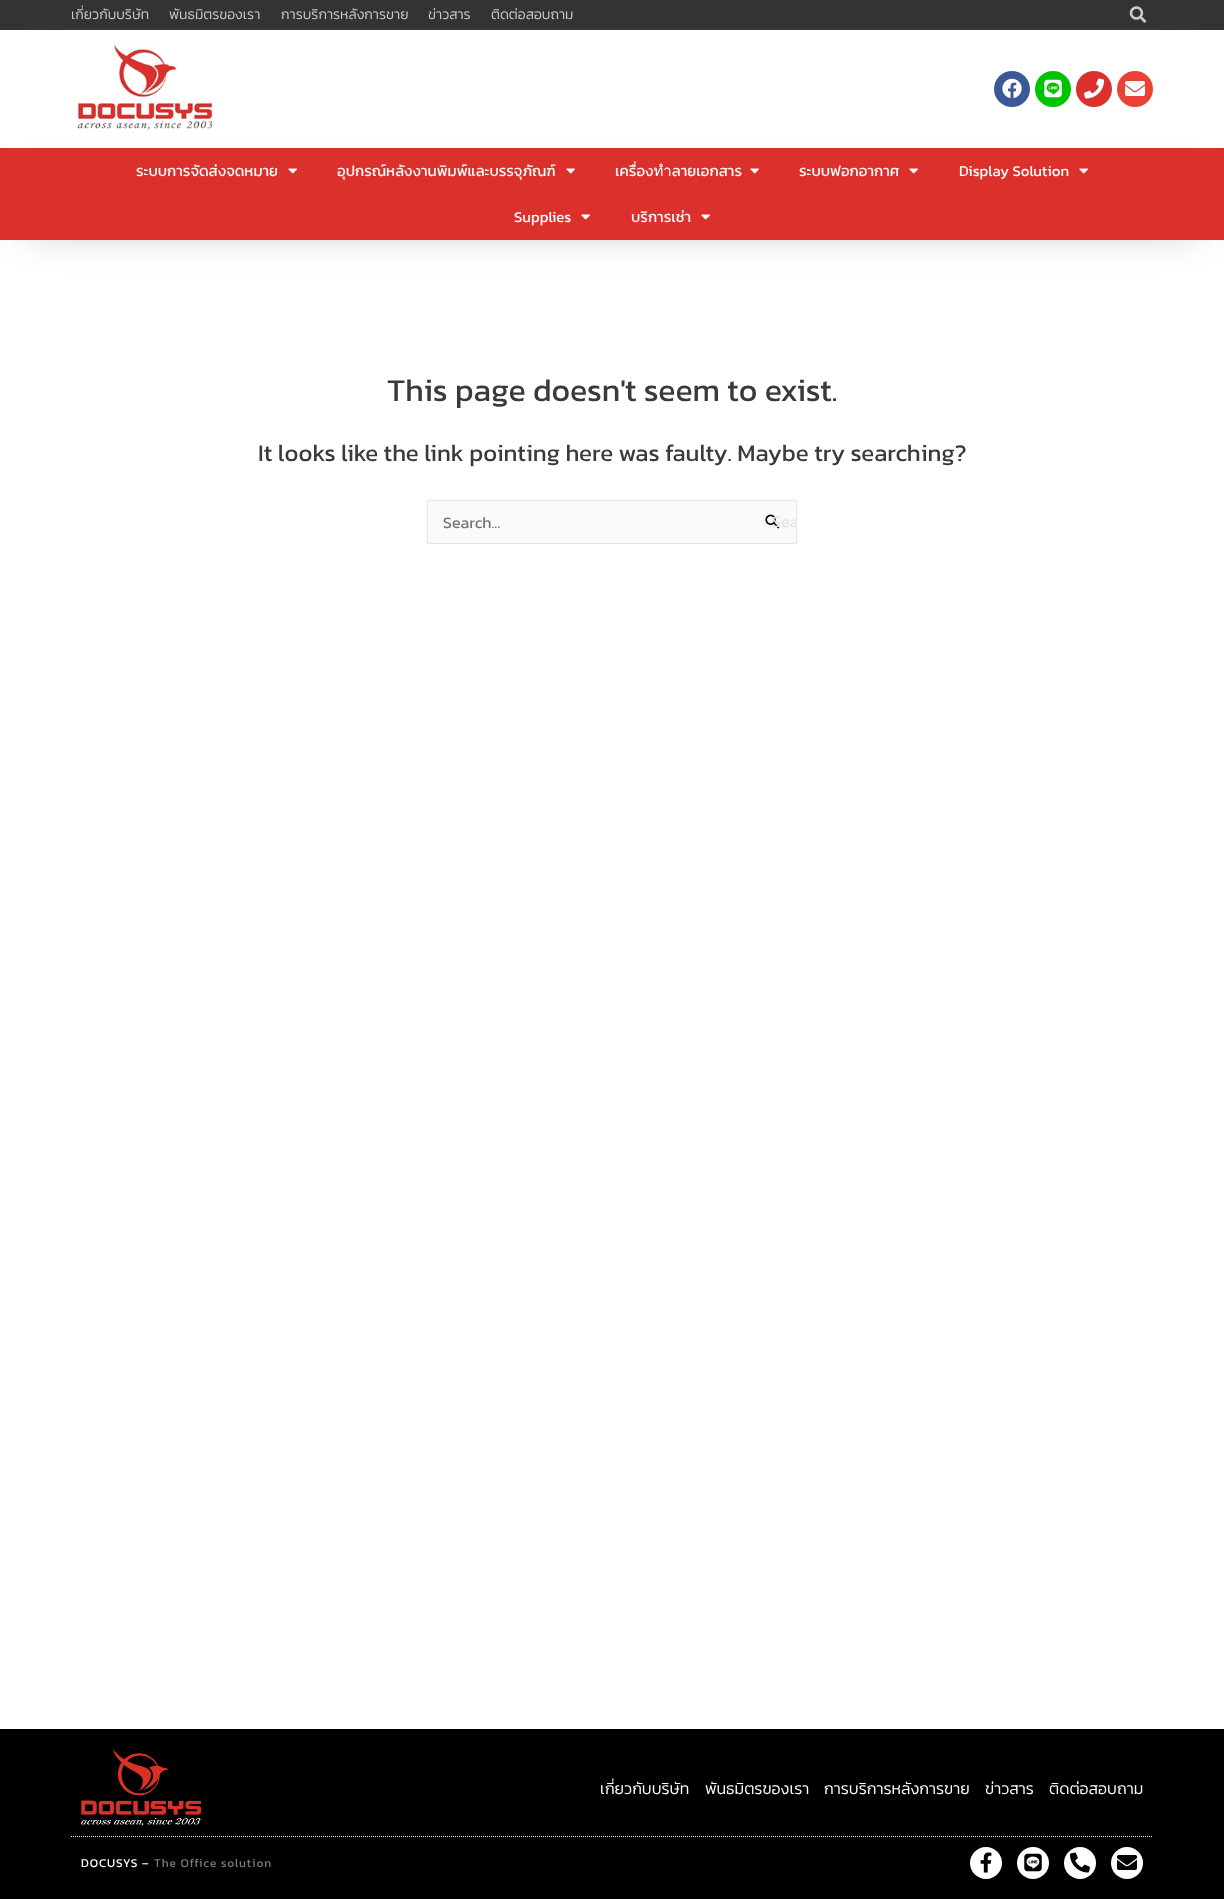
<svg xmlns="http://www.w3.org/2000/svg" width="1224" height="1899">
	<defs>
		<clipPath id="clip1"><rect x="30" y="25" width="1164" height="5" /></clipPath>
		<clipPath id="clip2"><rect x="752" y="500" width="45" height="42" rx="2" /></clipPath>
	</defs>
	<rect width="100%" height="100%" fill="#FFFFFF" />
	<rect x="0" y="0" width="1224" height="30" fill="#333333" />
	<image x="1129" y="6" width="18" height="17" href="assets/img6.png" />
	<g clip-path="url(#clip1)">
		<rect x="25" y="67" width="1174" height="68" fill="#AFAFAF" filter="blur(20.5px)" />
	</g>
	<image x="77" y="44" width="136" height="86" href="assets/img1.png" />
	<circle cx="1012" cy="89" r="18" fill="#3B5998" />
	<image x="1002" y="78" width="20" height="20" href="assets/img2.png" />
	<circle cx="1053" cy="89" r="18" fill="#00C300" />
	<image x="1044" y="79" width="18" height="19" href="assets/img3.png" />
	<circle cx="1094" cy="89" r="18" fill="#DB302B" />
	<image x="1084" y="78" width="20" height="21" href="assets/img4.png" />
	<circle cx="1135" cy="89" r="18" fill="#EA4335" />
	<image x="1125" y="81" width="20" height="15" href="assets/img5.png" />
	<g font-family="Kanit" font-size="14" font-weight="300" fill="#CCCCCC">
		<text x="71" y="19">เกี่ยวกับบริษัท</text>
		<text x="169" y="19">พันธมิตรของเรา</text>
		<text x="281" y="19">การบริการหลังการขาย</text>
		<text x="428" y="19">ข่าวสาร</text>
		<text x="491" y="19">ติดต่อสอบถาม</text>
	</g>
	<rect x="25" y="185" width="1174" height="42" fill="#AFAFAF" filter="blur(20.5px)" />
	<rect x="0" y="148" width="1224" height="92" fill="#DB302B" />
	<text x="136" y="176" font-family="Kanit" font-size="15" fill="#FFFFFF">ระบบการจัดส่งจดหมาย</text>
	<image x="288" y="168" width="9" height="6" href="assets/img7.png" />
	<text x="337" y="176" font-family="Kanit" font-size="15" fill="#FFFFFF">อุปกรณ์หลังงานพิมพ์และบรรจุภัณฑ์</text>
	<image x="566" y="168" width="9" height="6" href="assets/img7.png" />
	<text x="615" y="176" font-family="Kanit" font-size="15" fill="#FFFFFF">เครื่องทำลายเอกสาร</text>
	<image x="750" y="168" width="9" height="6" href="assets/img7.png" />
	<text x="799" y="176" font-family="Kanit" font-size="15" fill="#FFFFFF">ระบบฟอกอากาศ</text>
	<image x="909" y="168" width="9" height="6" href="assets/img7.png" />
	<text x="959" y="176" font-family="Kanit" font-size="15" fill="#FFFFFF">Display Solution</text>
	<image x="1079" y="168" width="9" height="6" href="assets/img7.png" />
	<text x="514" y="222" font-family="Kanit" font-size="15" fill="#FFFFFF">Supplies</text>
	<image x="581" y="214" width="9" height="6" href="assets/img7.png" />
	<text x="631" y="222" font-family="Kanit" font-size="15" fill="#FFFFFF">บริการเช่า</text>
	<image x="701" y="214" width="9" height="6" href="assets/img7.png" />
	<text x="387" y="401" font-family="Kanit" font-size="32" fill="#3A3A3A">This page doesn't seem to exist.</text>
	<text x="258" y="461" font-family="Kanit" font-size="24" fill="#3A3A3A">It looks like the link pointing here was faulty. Maybe try searching?</text>
	<rect x="427.5" y="500.5" width="369" height="43" rx="1.5" fill="#FAFAFA" stroke="#E5E5E5" />
	<image x="765" y="514" width="15" height="15" href="assets/img8.png" />
	<text x="443" y="528" font-family="Kanit" font-size="16" fill="#757575">Search...</text>
	<g clip-path="url(#clip2)">
		<text x="772" y="527" font-family="Kanit" font-size="16" fill="#E5E5E5">Sea</text>
	</g>
	<rect x="0" y="1729" width="1224" height="170" fill="#000000" />
	<path d="M71 1836.5H1153" fill="none" stroke="#FFFFFF" stroke-dasharray="1 1" />
	<image x="81" y="1749" width="120" height="77" href="assets/img9.png" />
	<g font-family="Kanit" font-size="16" font-weight="300" fill="#FFFFFF">
		<text x="600" y="1794">เกี่ยวกับบริษัท</text>
		<text x="705" y="1794">พันธมิตรของเรา</text>
		<text x="824" y="1794">การบริการหลังการขาย</text>
		<text x="985" y="1794">ข่าวสาร</text>
		<text x="1049" y="1794">ติดต่อสอบถาม</text>
	</g>
	<text x="81" y="1867" font-family="Kanit" font-size="12" letter-spacing="0.9" fill="#FFFFFF">DOCUSYS –</text>
	<text x="154" y="1867" font-family="Kanit" font-size="12" letter-spacing="0.9" fill="#7A7B7A">The Office solution</text>
	<circle cx="986" cy="1863" r="16" fill="#FFFFFF" />
	<image x="980" y="1852" width="12" height="21" href="assets/img10.png" />
	<circle cx="1033" cy="1863" r="16" fill="#FFFFFF" />
	<image x="1024" y="1853" width="18" height="19" href="assets/img11.png" />
	<circle cx="1080" cy="1863" r="16" fill="#FFFFFF" />
	<image x="1070" y="1852" width="20" height="21" href="assets/img12.png" />
	<circle cx="1127" cy="1863" r="16" fill="#FFFFFF" />
	<image x="1117" y="1855" width="20" height="15" href="assets/img13.png" />
</svg>
